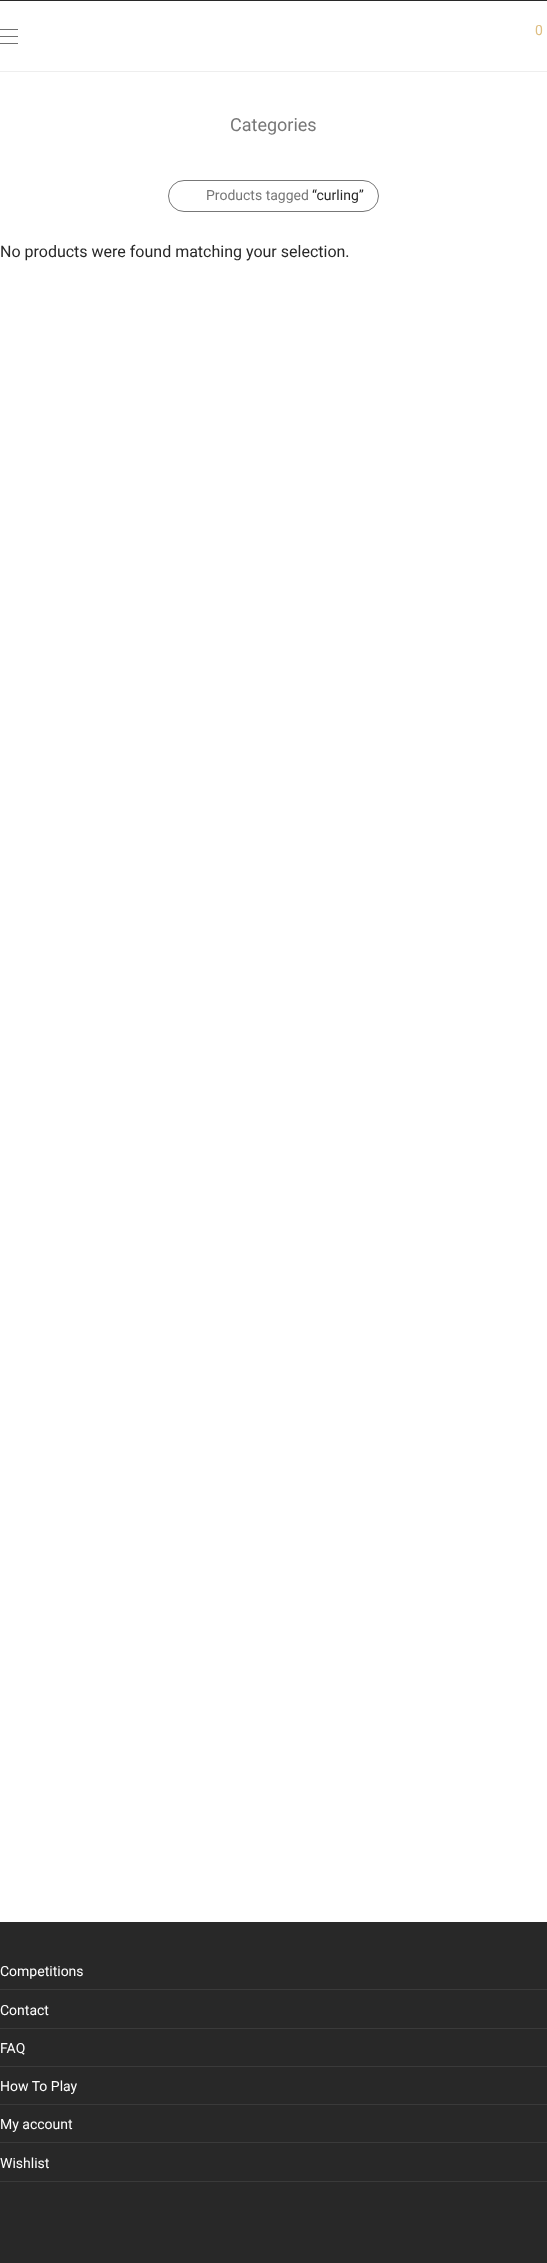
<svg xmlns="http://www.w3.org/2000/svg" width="547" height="2263">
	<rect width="100%" height="100%" fill="#FFFFFF" />
	<rect x="0" y="0" width="547" height="1" fill="#282828" />
	<rect x="0" y="71" width="547" height="1" fill="#EEEEEE" />
	<rect x="0" y="29" width="18" height="1" fill="#707070" />
	<rect x="0" y="36" width="18" height="1" fill="#707070" />
	<rect x="0" y="43" width="18" height="1" fill="#707070" />
	<text x="535" y="35" font-family="Roboto" font-size="14" fill="#DEBE82">0</text>
	<text x="230" y="131" font-family="Roboto" font-size="18" fill="#777777">Categories</text>
	<rect x="168.5" y="180.5" width="210" height="31" rx="15.5" fill="none" stroke="#777777" />
	<text x="206" y="200" font-family="Roboto" font-size="14" fill="#777777">Products tagged</text>
	<text x="312" y="200" font-family="Roboto" font-size="14" fill="#282828">“curling”</text>
	<text x="0" y="257" font-family="Roboto" font-size="16" fill="#282828">No products were found matching your selection.</text>
	<rect x="0" y="1922" width="547" height="341" fill="#282828" />
	<rect x="0" y="1989" width="547" height="1" fill="#3A3A3A" />
	<text x="0" y="1976" font-family="Roboto" font-size="14" fill="#FFFFFF">Competitions</text>
	<rect x="0" y="2028" width="547" height="1" fill="#3A3A3A" />
	<text x="0" y="2015" font-family="Roboto" font-size="14" fill="#FFFFFF">Contact</text>
	<rect x="0" y="2066" width="547" height="1" fill="#3A3A3A" />
	<text x="0" y="2053" font-family="Roboto" font-size="14" fill="#FFFFFF">FAQ</text>
	<rect x="0" y="2104" width="547" height="1" fill="#3A3A3A" />
	<text x="0" y="2091" font-family="Roboto" font-size="14" fill="#FFFFFF">How To Play</text>
	<rect x="0" y="2142" width="547" height="1" fill="#3A3A3A" />
	<text x="0" y="2129" font-family="Roboto" font-size="14" fill="#FFFFFF">My account</text>
	<rect x="0" y="2181" width="547" height="1" fill="#3A3A3A" />
	<text x="0" y="2168" font-family="Roboto" font-size="14" fill="#FFFFFF">Wishlist</text>
</svg>
